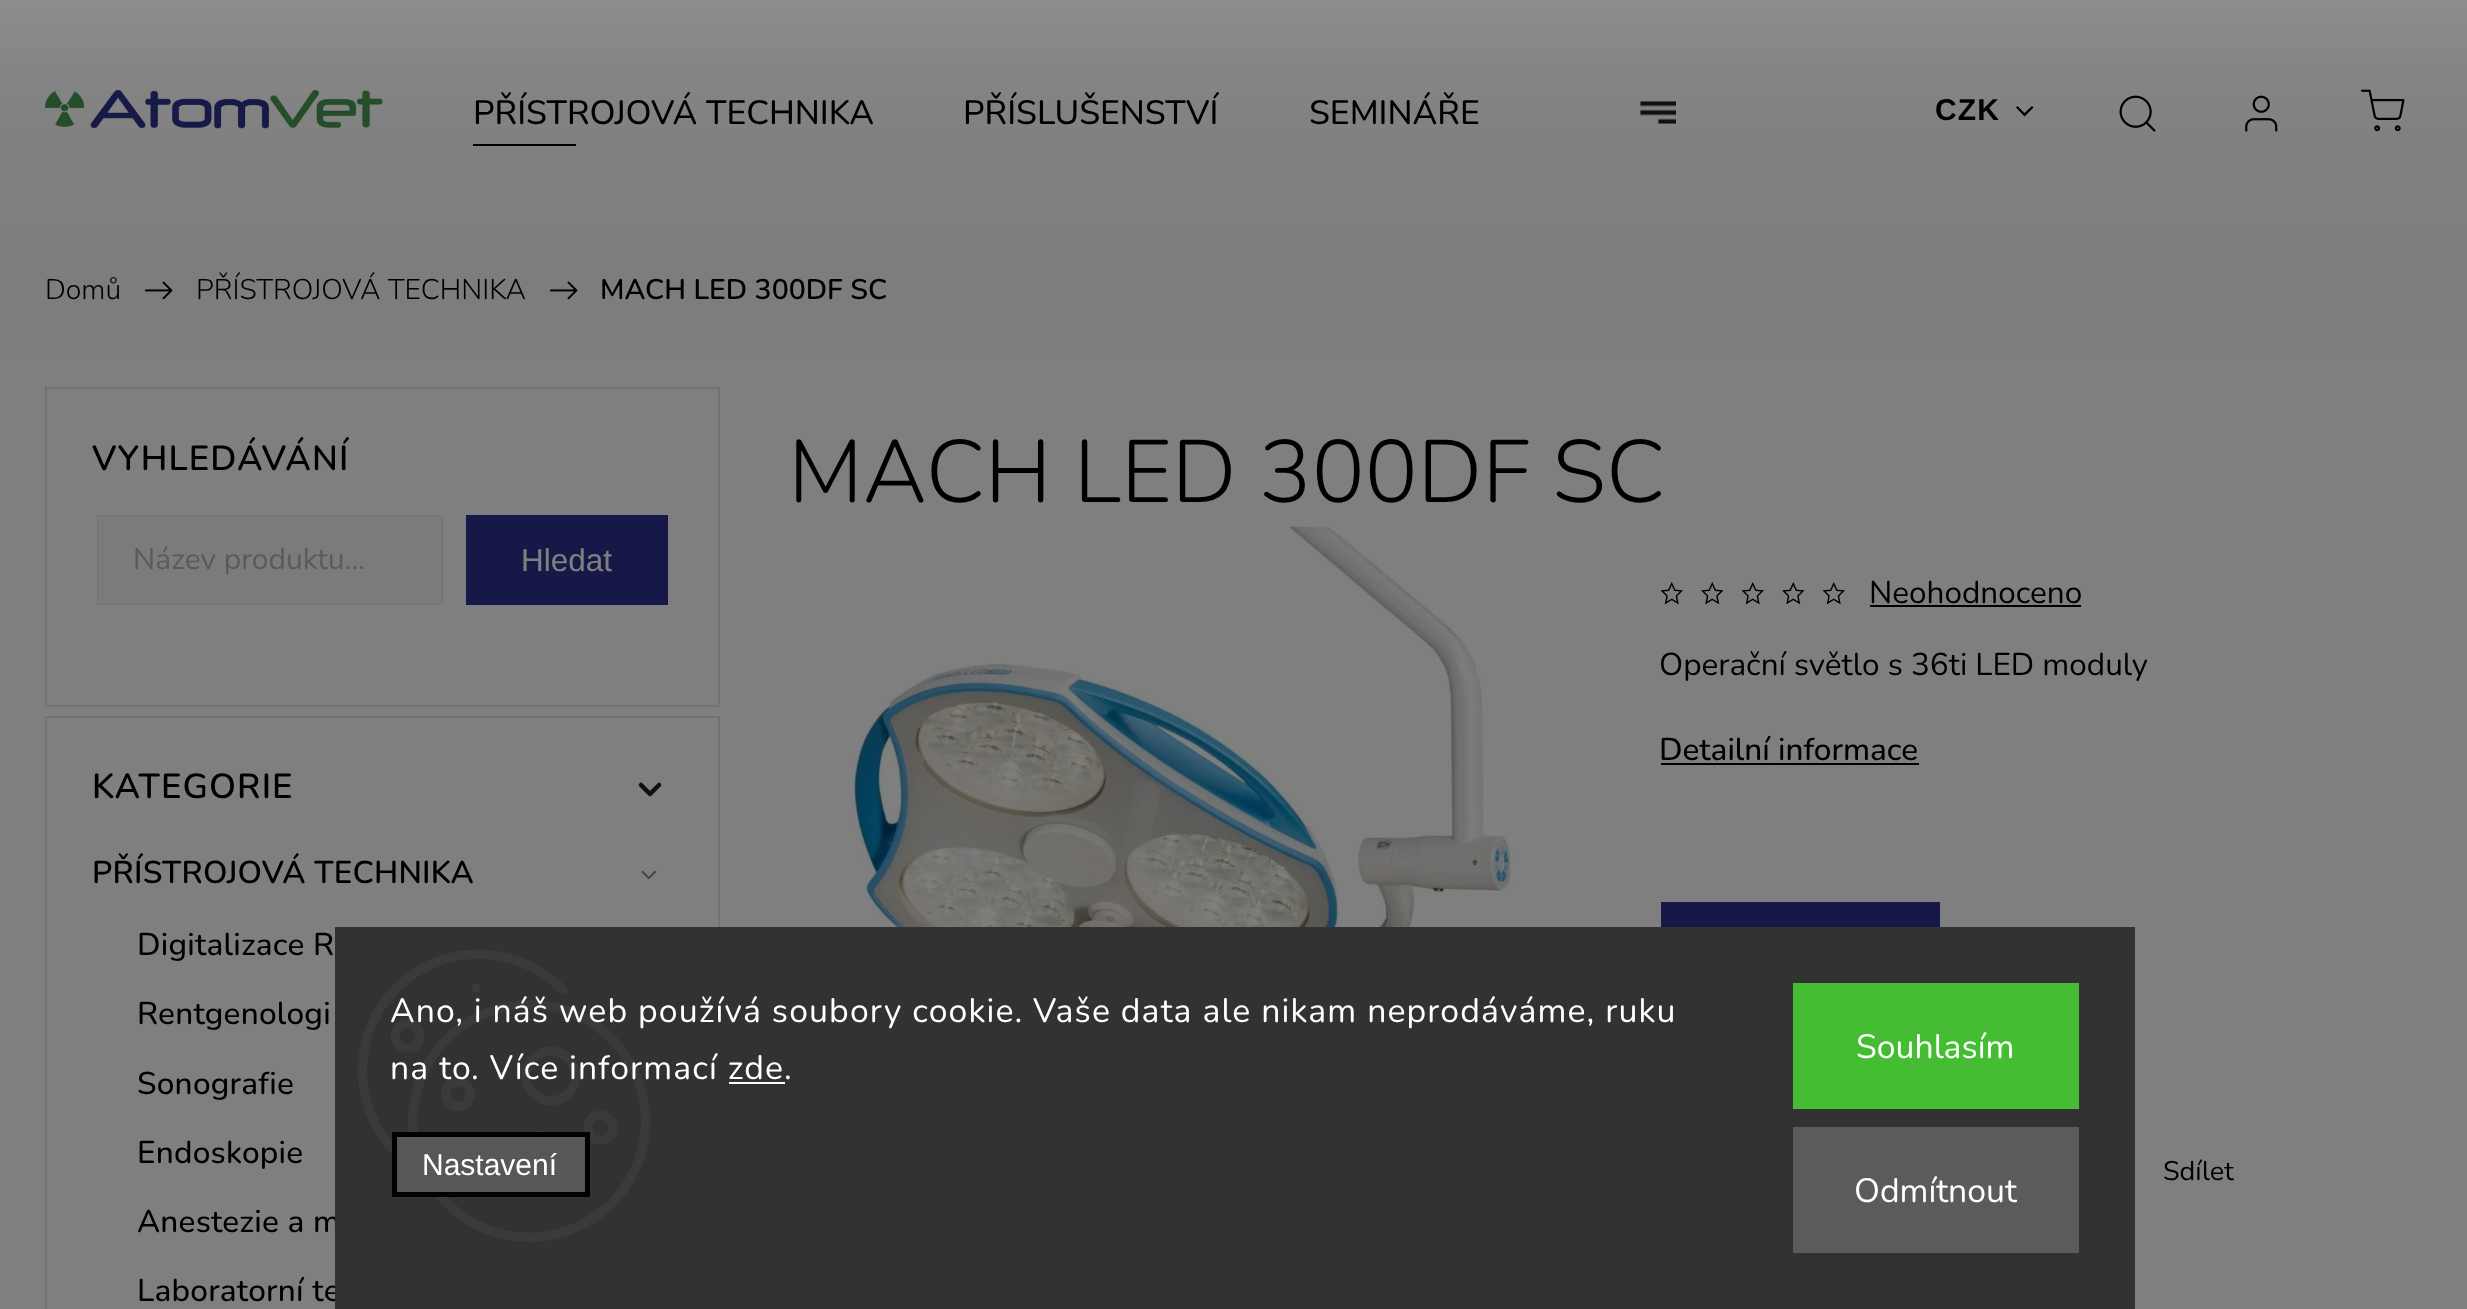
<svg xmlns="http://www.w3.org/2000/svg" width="2467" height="1309">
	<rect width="100%" height="100%" fill="#FFFFFF" />
	<text x="473" y="124" font-family="Nunito" font-size="33.75" font-weight="500" fill="#000000">PŘÍSTROJOVÁ TECHNIKA</text>
	<rect x="473" y="144" width="103" height="2" fill="#000000" />
	<g font-family="Nunito" font-size="33.75" font-weight="500" fill="#000000">
		<text x="963" y="124">PŘÍSLUŠENSTVÍ</text>
		<text x="1309" y="124">SEMINÁŘE</text>
	</g>
	<image x="1640" y="101" width="36" height="23" href="assets/img1.png" />
	<image x="45" y="90" width="338" height="39" href="assets/img2.png" />
	<text x="1935" y="120" font-family="Liberation Sans" font-size="30" font-weight="700" letter-spacing="1.12" fill="#000000">CZK</text>
	<path d="M2016 107.5L2017.5 106L2024.5 113L2032 106L2033.5 107.5L2024.5 116.5Z" fill="#000000" />
	<image x="2119" y="95" width="37" height="37" href="assets/img3.png" />
	<image x="2245" y="95" width="33" height="37" href="assets/img4.png" />
	<image x="2361" y="89" width="44" height="43" href="assets/img5.png" />
	<rect x="2" y="225" width="2465" height="128" fill="#FAFAFA" />
	<text x="45" y="299" font-family="Nunito" font-size="28.4" font-weight="300" fill="#000000">Domů</text>
	<image x="144" y="281" width="29" height="19" href="assets/img6.png" />
	<text x="196" y="299" font-family="Nunito" font-size="28.4" font-weight="300" fill="#000000">PŘÍSTROJOVÁ TECHNIKA</text>
	<image x="549" y="281" width="29" height="19" href="assets/img6.png" />
	<text x="600" y="299" font-family="Nunito" font-size="28.4" font-weight="600" fill="#000000">MACH LED 300DF SC</text>
	<rect x="46" y="388" width="673" height="318" fill="none" stroke="#E4E4E4" stroke-width="2" />
	<text x="92" y="470" font-family="Nunito" font-size="34.75" font-weight="600" letter-spacing="1.12" fill="#000000">VYHLEDÁVÁNÍ</text>
	<rect x="98" y="516" width="344" height="88" fill="#F7F7F9" stroke="#EDEDED" stroke-width="2" />
	<text x="133" y="569" font-family="Nunito" font-size="30" fill="#B6B6B6">Název produktu...</text>
	<rect x="466" y="515" width="202" height="90" fill="#2D3091" />
	<text x="521" y="571" font-family="Liberation Sans" font-size="31.5" fill="#FFFFFF">Hledat</text>
	<rect x="46" y="717" width="673" height="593" fill="none" stroke="#E4E4E4" stroke-width="2" />
	<text x="92" y="798" font-family="Nunito" font-size="34.75" font-weight="600" letter-spacing="1.12" fill="#000000">KATEGORIE</text>
	<path d="M641 785L650 794L659 785" fill="none" stroke="#1E1E1C" stroke-width="4.5" stroke-linecap="round" stroke-linejoin="round" />
	<text x="92" y="883" font-family="Nunito" font-size="31.5" font-weight="600" letter-spacing="0.25" fill="#000000">PŘÍSTROJOVÁ TECHNIKA</text>
	<image x="641" y="870" width="16" height="10" href="assets/img7.png" />
	<g font-family="Nunito" font-size="31.5" font-weight="500" letter-spacing="0.25" fill="#000000">
		<text x="137" y="955">Digitalizace R</text>
		<text x="137" y="1024">Rentgenologi</text>
		<text x="137" y="1094">Sonografie</text>
		<text x="137" y="1163">Endoskopie</text>
		<text x="137" y="1232">Anestezie a m</text>
		<text x="137" y="1301">Laboratorní te</text>
	</g>
	<text x="788" y="502" font-family="Nunito" font-size="88.25" font-weight="300" fill="#000000">MACH LED 300DF SC</text>
	<image x="849" y="526" width="667" height="401" href="assets/img8.png" />
	<image x="1660" y="582" width="23" height="23" href="assets/img9.png" />
	<image x="1701" y="582" width="23" height="23" href="assets/img10.png" />
	<image x="1741" y="582" width="23" height="23" href="assets/img9.png" />
	<image x="1782" y="582" width="23" height="23" href="assets/img10.png" />
	<image x="1822" y="582" width="23" height="23" href="assets/img9.png" />
	<text x="1869" y="603" font-family="Nunito" font-size="31.5" fill="#000000">Neohodnoceno</text>
	<rect x="1870" y="605" width="211" height="2" fill="#000000" />
	<text x="1659" y="675" font-family="Nunito" font-size="31.5" fill="#000000">Operační světlo s 36ti LED moduly</text>
	<text x="1659" y="760" font-family="Nunito" font-size="31.5" font-weight="500" fill="#000000">Detailní informace</text>
	<rect x="1661" y="763" width="258" height="2" fill="#000000" />
	<rect x="1661" y="902" width="279" height="25" fill="#2D3091" />
	<text x="2163" y="1180" font-family="Nunito" font-size="27" fill="#000000">Sdílet</text>
	<rect x="-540" y="-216" width="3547" height="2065" fill="#000000" fill-opacity="0.5" filter="blur(180px)" />
	<rect x="335" y="927" width="1800" height="382" fill="#323232" />
	<image x="358" y="950" width="292" height="292" href="assets/img11.png" />
	<g font-family="Nunito" font-size="33.75" letter-spacing="1.12" fill="#FFFFFF">
		<text x="390" y="1022">Ano, i náš web používá soubory cookie. Vaše data ale nikam neprodáváme, ruku</text>
		<text x="390" y="1079">na to. Více informací zde.</text>
	</g>
	<rect x="729" y="1082" width="56" height="2" fill="#FFFFFF" />
	<rect x="394.5" y="1134.5" width="193" height="60" fill="#585757" stroke="#000000" stroke-width="5" />
	<text x="422" y="1175" font-family="Liberation Sans" font-size="30" fill="#FFFFFF">Nastavení</text>
	<rect x="1793" y="983" width="286" height="126" fill="#44BD32" />
	<text x="1856" y="1058" font-family="Nunito" font-size="33.75" fill="#FFFFFF">Souhlasím</text>
	<rect x="1793" y="1127" width="286" height="126" fill="#5B5B5B" />
	<text x="1854" y="1202" font-family="Nunito" font-size="33.75" fill="#FFFFFF">Odmítnout</text>
</svg>
